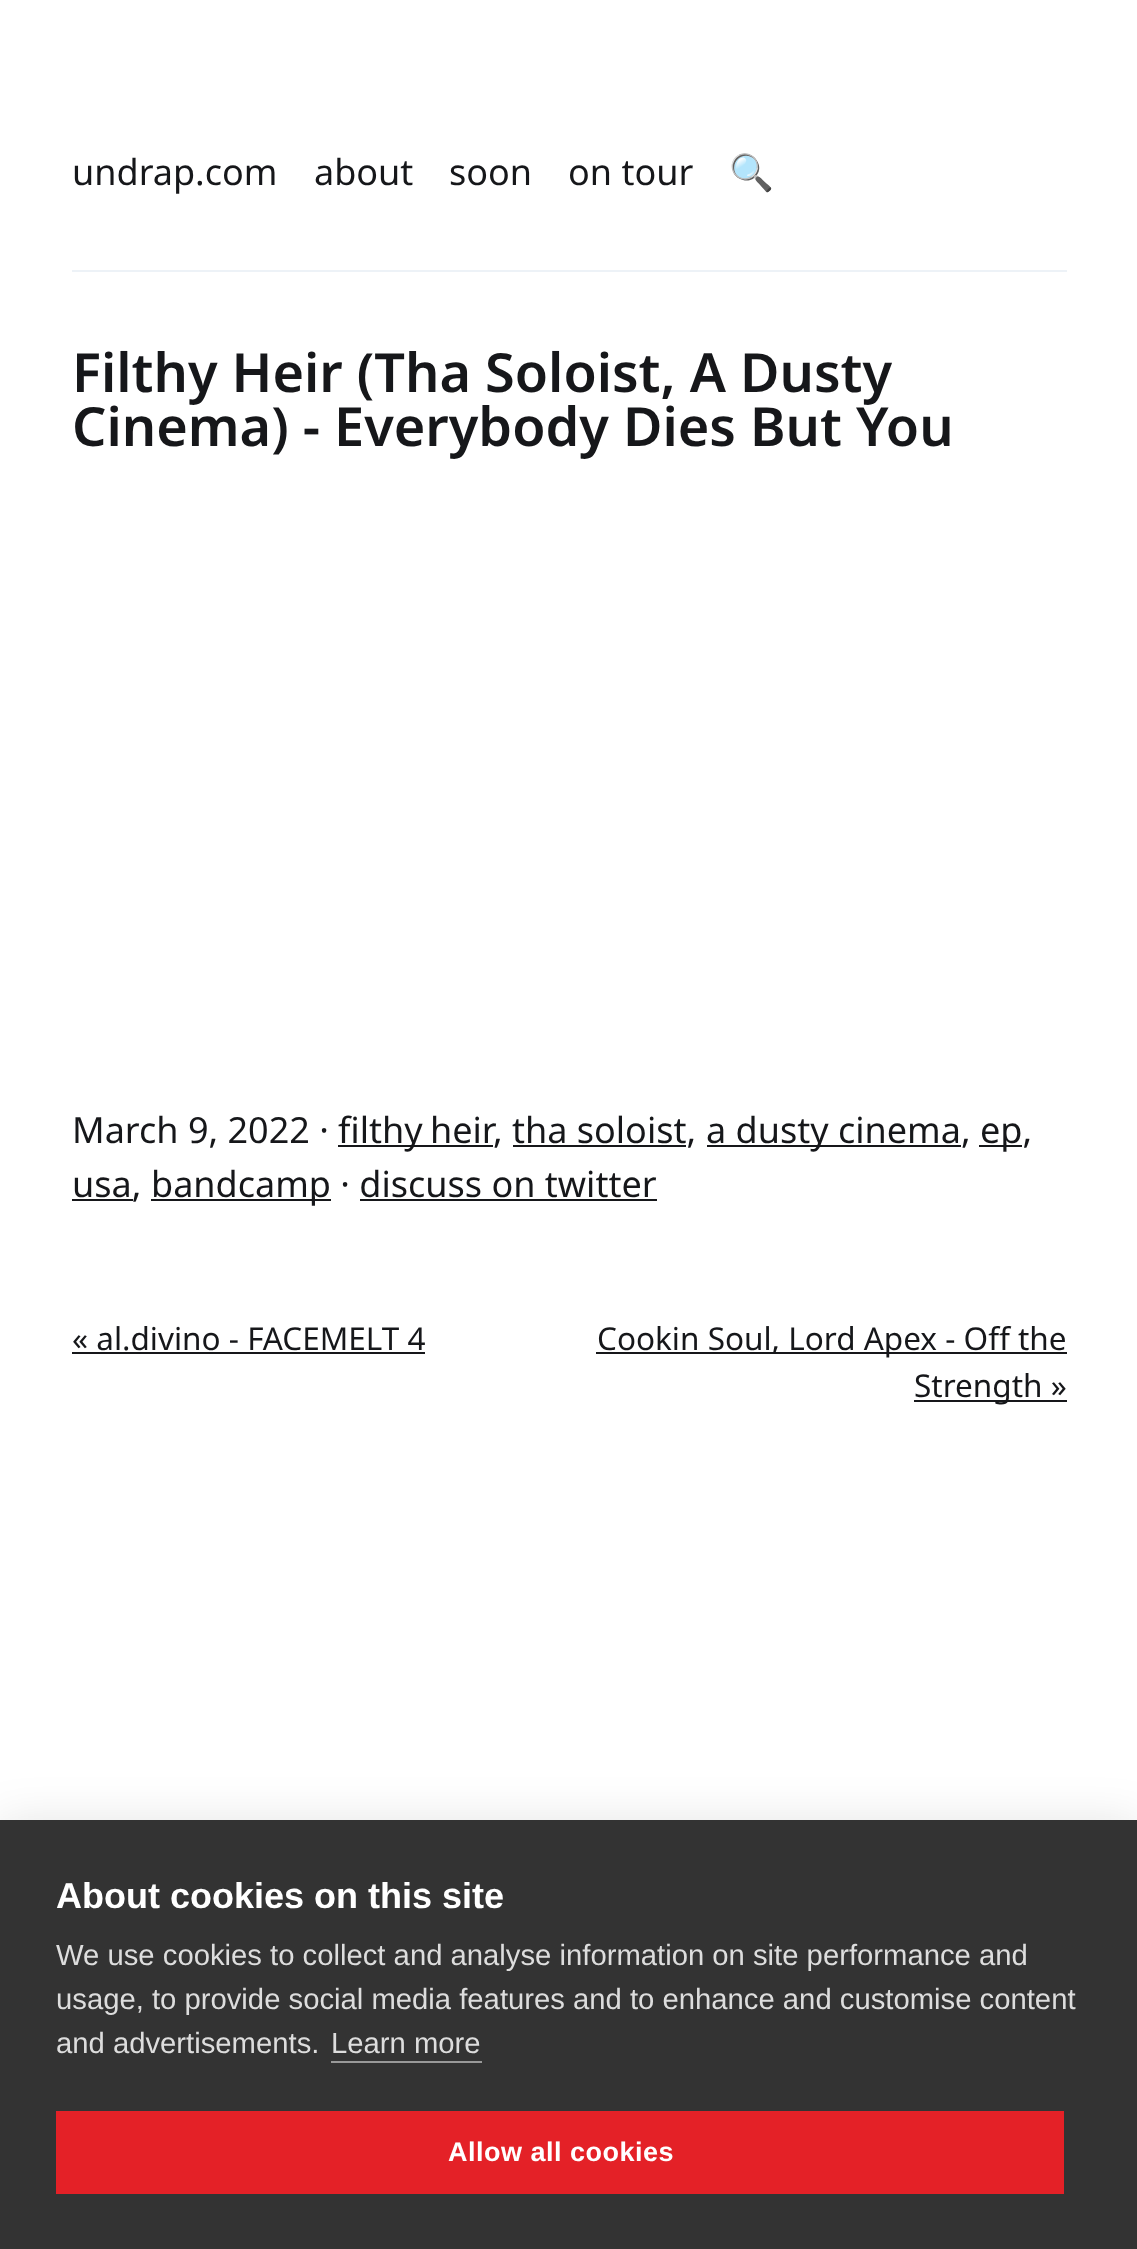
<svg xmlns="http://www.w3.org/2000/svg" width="1137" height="2249">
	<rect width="100%" height="100%" fill="#FFFFFF" />
	<rect x="72" y="270" width="995" height="2" fill="#EDF2F7" />
	<g font-family="Noto Sans" font-size="36" fill="#16171A">
		<text x="72" y="185">undrap.com</text>
		<text x="314" y="185">about</text>
		<text x="449" y="185">soon</text>
		<text x="568" y="185">on tour</text>
	</g>
	<text x="729" y="185" font-family="Noto Color Emoji" font-size="36" fill="#16171A">🔍</text>
	<g font-family="Noto Sans" font-size="54" font-weight="600" fill="#16171A">
		<text x="72" y="392">Filthy Heir (Tha Soloist, A Dusty</text>
		<text x="72" y="446">Cinema) - Everybody Dies But You</text>
	</g>
	<text x="72" y="1143" font-family="Noto Sans" font-size="36" fill="#16171A">March 9, 2022 ·</text>
	<rect x="338" y="1145" width="155" height="2" fill="#16171A" />
	<g font-family="Noto Sans" font-size="36" fill="#16171A">
		<text x="338" y="1143" word-spacing="-2">filthy heir</text>
		<text x="493" y="1143">, tha soloist,</text>
	</g>
	<rect x="707" y="1145" width="254" height="2" fill="#16171A" />
	<text x="706" y="1143" font-family="Noto Sans" font-size="36" fill="#16171A">a dusty cinema,</text>
	<rect x="979" y="1145" width="43" height="2" fill="#16171A" />
	<text x="980" y="1143" font-family="Noto Sans" font-size="36" fill="#16171A">ep,</text>
	<rect x="513" y="1145" width="173" height="2" fill="#16171A" />
	<rect x="72" y="1199" width="61" height="2" fill="#16171A" />
	<text x="72" y="1197" font-family="Noto Sans" font-size="36" fill="#16171A">usa,</text>
	<rect x="151" y="1199" width="180" height="2" fill="#16171A" />
	<text x="151" y="1197" font-family="Noto Sans" font-size="36" fill="#16171A">bandcamp · discuss on twitter</text>
	<rect x="360" y="1199" width="297" height="2" fill="#16171A" />
	<text x="72" y="1350" font-family="Noto Sans" font-size="31.5" fill="#16171A">« al.divino - FACEMELT 4</text>
	<rect x="72" y="1352" width="353" height="2" fill="#16171A" />
	<rect x="596" y="1352" width="471" height="2" fill="#16171A" />
	<text x="597" y="1350" font-family="Noto Sans" font-size="31.5" fill="#16171A">Cookin Soul, Lord Apex - Off the</text>
	<rect x="914" y="1400" width="153" height="2" fill="#16171A" />
	<text x="914" y="1397" font-family="Noto Sans" font-size="31.5" fill="#16171A">Strength »</text>
	<rect x="0" y="1820" width="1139" height="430" fill="#000000" fill-opacity="0.1" filter="blur(22.5px)" />
	<rect x="0" y="1820" width="1137" height="429" fill="#333333" />
	<text x="56" y="1908" font-family="Liberation Sans" font-size="36" font-weight="700" fill="#FFFFFF">About cookies on this site</text>
	<g font-family="Liberation Sans" font-size="29.25" fill="#DDDDDD">
		<text x="56" y="1965">We use cookies to collect and analyse information on site performance and</text>
		<text x="56" y="2009">usage, to provide social media features and to enhance and customise content</text>
		<text x="56" y="2053">and advertisements.</text>
		<text x="331" y="2053">Learn more</text>
	</g>
	<rect x="331" y="2061" width="151" height="2" fill="#999999" />
	<rect x="56" y="2111" width="1008" height="83" fill="#E42127" />
	<text x="448" y="2161" font-family="Liberation Sans" font-size="27" font-weight="700" letter-spacing="0.5" fill="#FFFFFF">Allow all cookies</text>
</svg>
